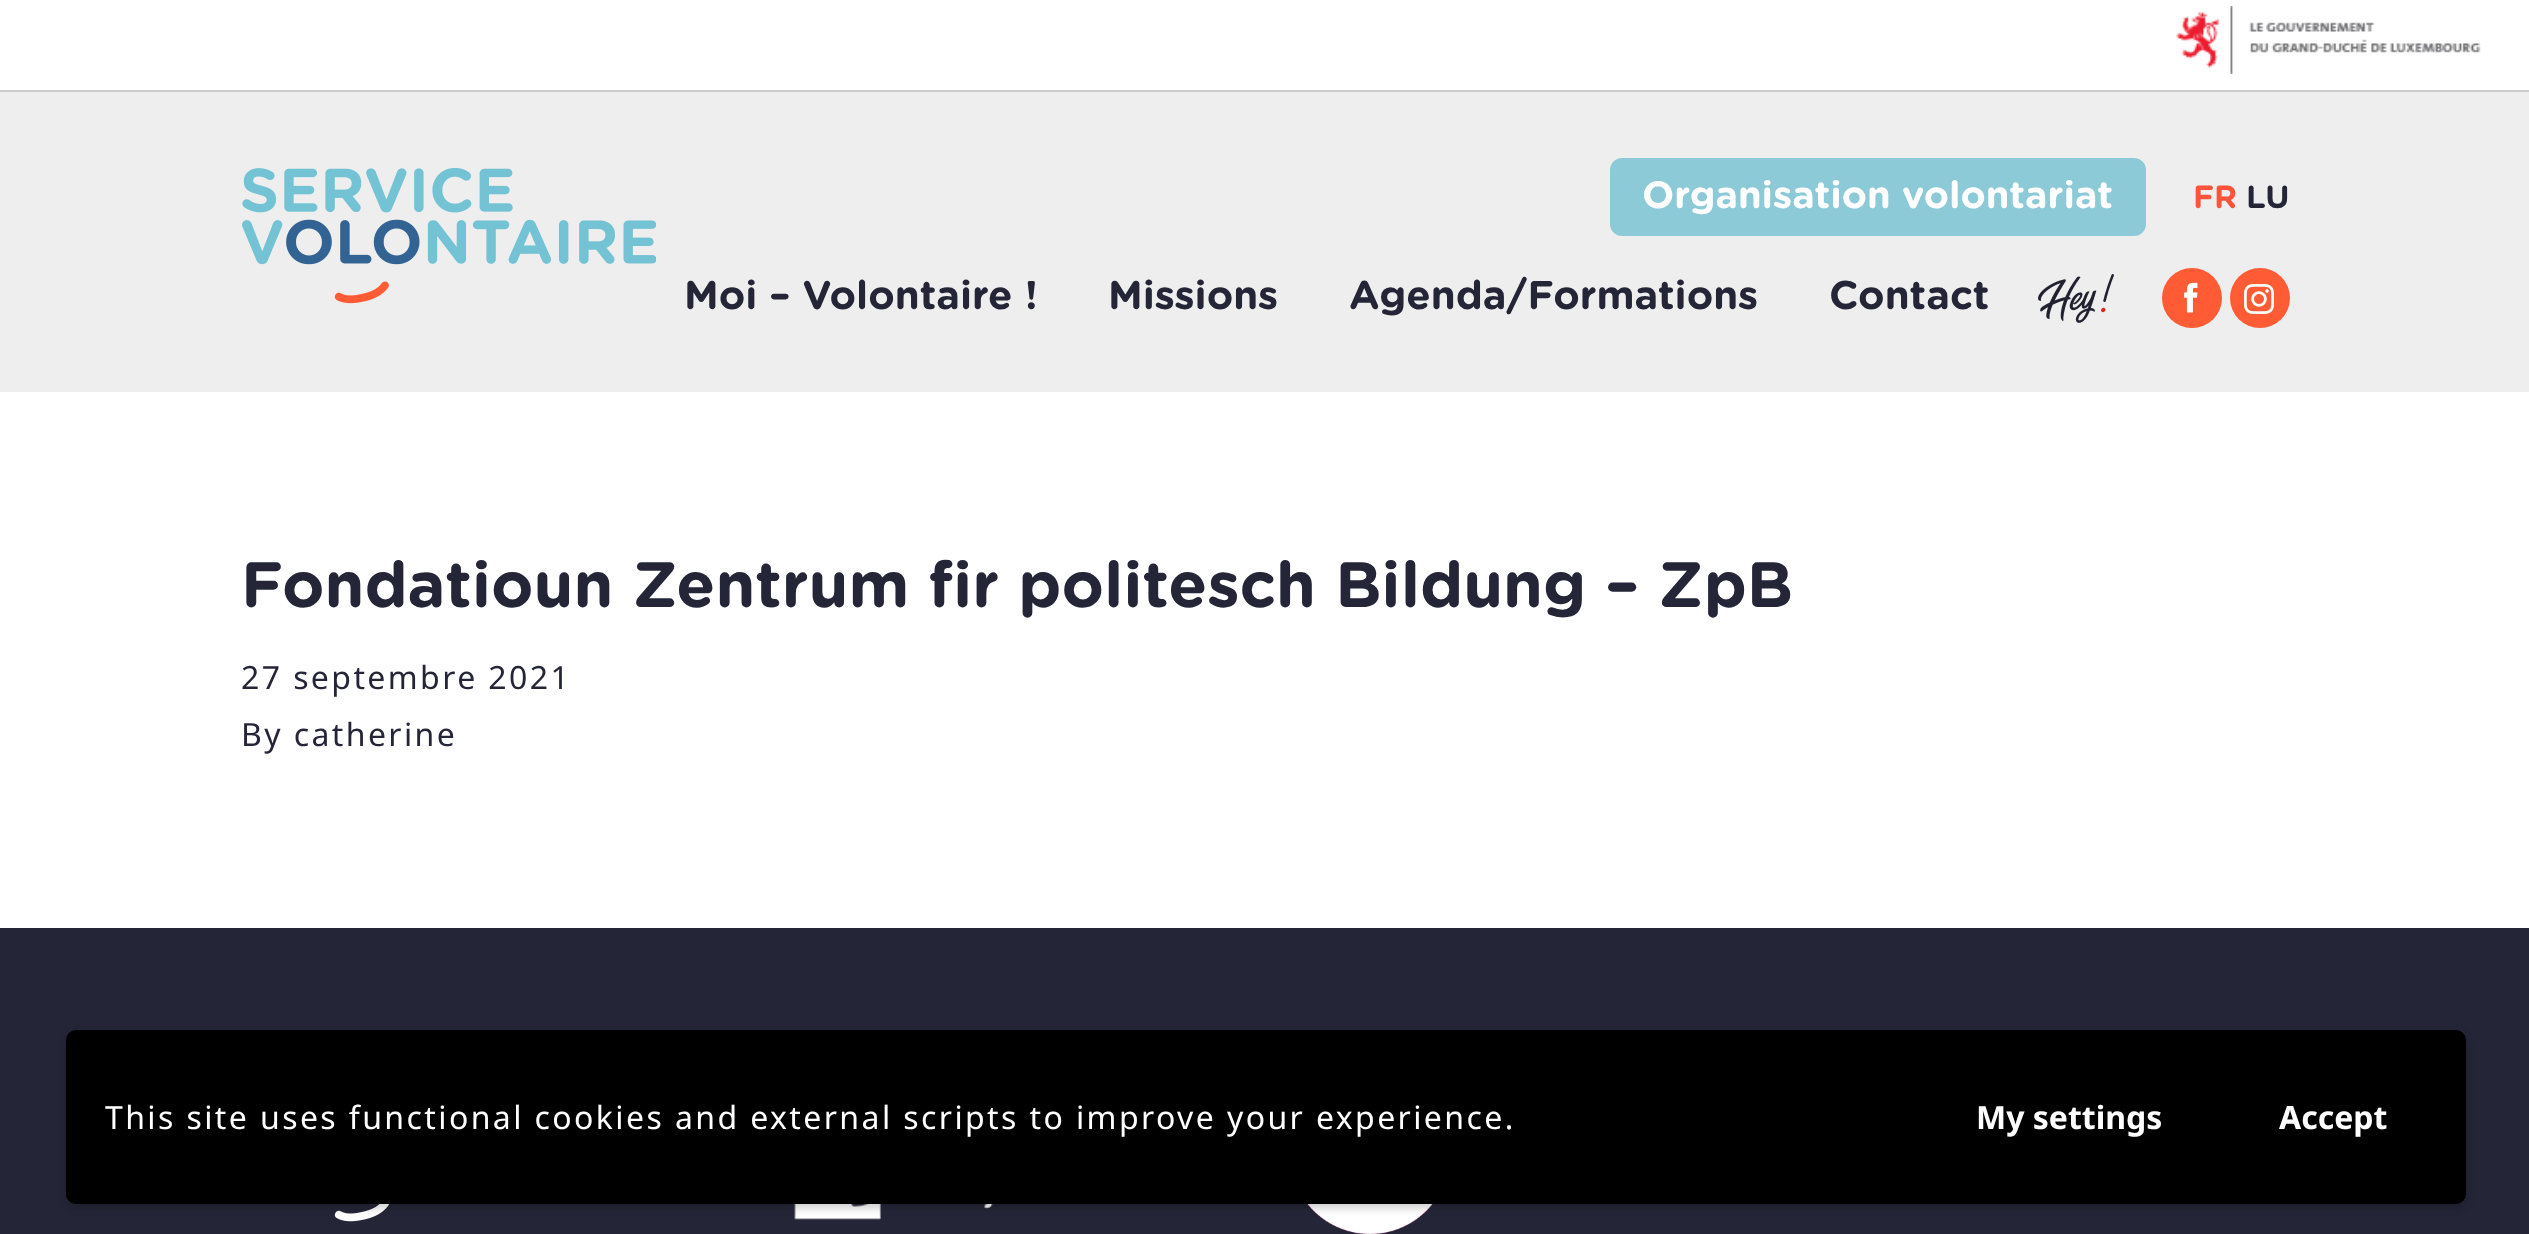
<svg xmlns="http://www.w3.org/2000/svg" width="2529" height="1234">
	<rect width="100%" height="100%" fill="#FFFFFF" />
	<rect x="0" y="90" width="2529" height="2" fill="#CCCACA" />
	<image x="2176" y="6" width="305" height="68" href="assets/img1.png" />
	<rect x="0" y="92" width="2529" height="300" fill="#EEEEEE" />
	<image x="242" y="168" width="414" height="136" href="assets/img2.png" />
	<rect x="1610" y="158" width="536" height="78" rx="12" fill="#8DCAD7" />
	<text x="1642" y="208" font-family="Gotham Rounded" font-size="38" font-weight="700" fill="#FFFFFF">Organisation volontariat</text>
	<text x="2193" y="208" font-family="Gotham Rounded" font-size="32" font-weight="700" fill="#FE543A">FR</text>
	<text x="2246" y="208" font-family="Gotham Rounded" font-size="32" font-weight="700" fill="#242638">LU</text>
	<g font-family="Gotham Rounded" font-size="40" font-weight="700" fill="#242638">
		<text x="684" y="309">Moi – Volontaire !</text>
		<text x="1108" y="309">Missions</text>
		<text x="1349" y="309">Agenda/Formations</text>
		<text x="1829" y="309">Contact</text>
	</g>
	<image x="2038" y="274" width="76" height="49" href="assets/img3.png" />
	<circle cx="2192" cy="298" r="30" fill="#FF5C35" />
	<image x="2184" y="282" width="14" height="31" href="assets/img4.png" />
	<circle cx="2260" cy="298" r="30" fill="#FF5C35" />
	<image x="2244" y="284" width="30" height="30" href="assets/img5.png" />
	<text x="241" y="607" font-family="Gotham Rounded" font-size="64" font-weight="700" fill="#242638">Fondatioun Zentrum fir politesch Bildung – ZpB</text>
	<g font-family="Noto Sans" font-size="32" letter-spacing="2.4" fill="#242638">
		<text x="241" y="689">27 septembre 2021</text>
		<text x="241" y="746">By catherine</text>
	</g>
	<rect x="0" y="928" width="2529" height="306" fill="#242638" />
	<image x="334" y="1204" width="55" height="18" href="assets/img6.png" />
	<image x="794" y="1204" width="199" height="16" href="assets/img7.png" />
	<image x="1307" y="1204" width="126" height="30" href="assets/img8.png" />
	<rect x="66" y="1034" width="2400" height="174" rx="10" fill="#000000" fill-opacity="0.2" filter="blur(4px)" />
	<rect x="66" y="1030" width="2400" height="174" rx="10" fill="#000000" />
	<text x="105" y="1129" font-family="Noto Sans" font-size="32" letter-spacing="2.4" fill="#FFFFFF">This site uses functional cookies and external scripts to improve your experience.</text>
	<g font-family="Noto Sans" font-size="32" font-weight="700" fill="#FFFFFF">
		<text x="1976" y="1129">My settings</text>
		<text x="2279" y="1129">Accept</text>
	</g>
</svg>
